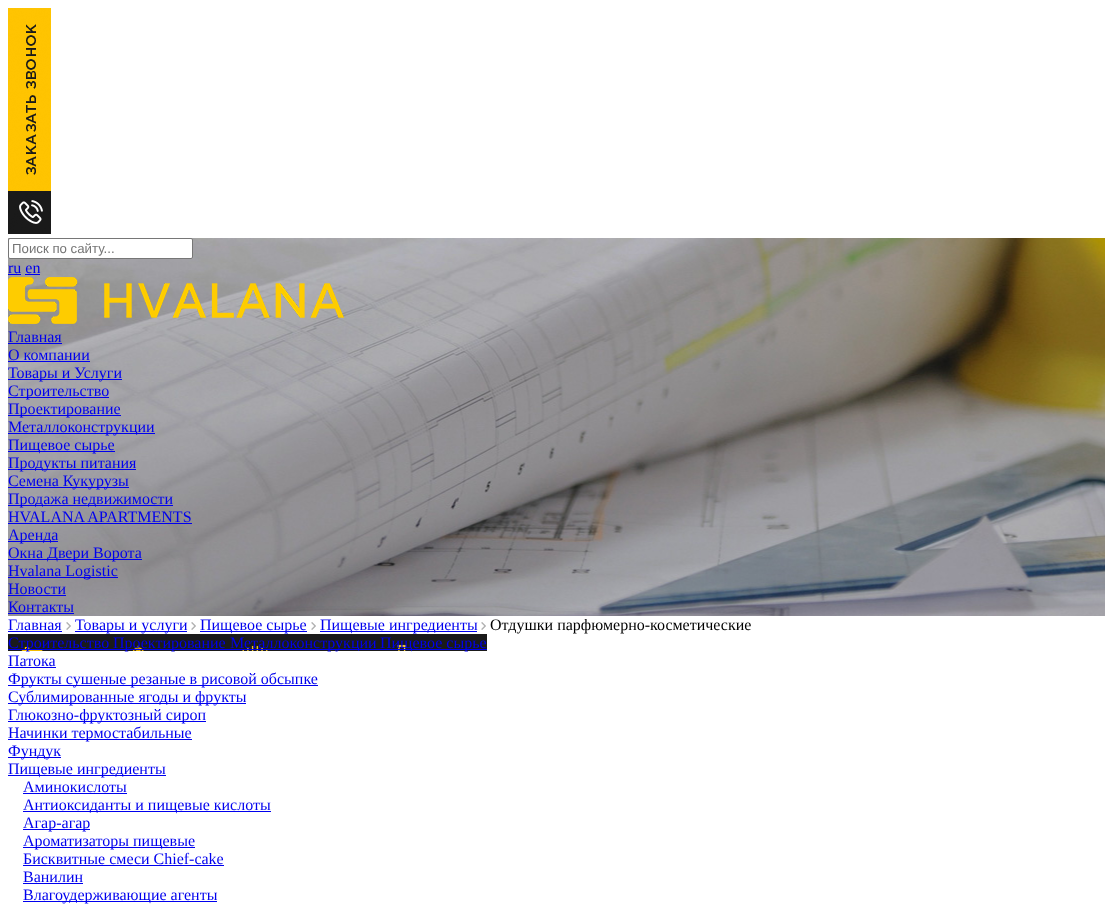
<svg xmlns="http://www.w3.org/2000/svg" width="1113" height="912">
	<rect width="100%" height="100%" fill="#FFFFFF" />
	<image x="8" y="8" width="43" height="226" href="assets/img1.png" />
	<image x="8" y="238" width="1097" height="378" href="assets/img2.png" />
	<rect x="8.5" y="238.5" width="184" height="20" rx="1.5" fill="#FFFFFF" stroke="#767676" />
	<text x="12" y="253" font-family="Liberation Sans" font-size="13.25" fill="#757575">Поиск по сайту...</text>
	<text x="8" y="273" font-family="Liberation Serif" font-size="16" fill="#0000EE">ru en</text>
	<rect x="8" y="274" width="13" height="1" fill="#0000EE" />
	<rect x="25" y="274" width="15" height="1" fill="#0000EE" />
	<image x="8" y="277" width="336" height="47" href="assets/img3.png" />
	<text x="8" y="342" font-family="Liberation Serif" font-size="16" fill="#0000EE">Главная</text>
	<rect x="8" y="343" width="54" height="1" fill="#0000EE" />
	<text x="8" y="360" font-family="Liberation Serif" font-size="16" fill="#0000EE">О компании</text>
	<rect x="8" y="361" width="82" height="1" fill="#0000EE" />
	<rect x="8" y="379" width="114" height="1" fill="#0000EE" />
	<text x="8" y="378" font-family="Liberation Serif" font-size="16" fill="#0000EE">Товары и Услуги</text>
	<rect x="8" y="397" width="101" height="1" fill="#0000EE" />
	<text x="8" y="396" font-family="Liberation Serif" font-size="16" fill="#0000EE">Строительство</text>
	<rect x="8" y="415" width="113" height="1" fill="#0000EE" />
	<text x="8" y="414" font-family="Liberation Serif" font-size="16" fill="#0000EE">Проектирование</text>
	<rect x="8" y="433" width="147" height="1" fill="#0000EE" />
	<text x="8" y="432" font-family="Liberation Serif" font-size="16" fill="#0000EE">Металлоконструкции</text>
	<rect x="8" y="451" width="107" height="1" fill="#0000EE" />
	<text x="8" y="450" font-family="Liberation Serif" font-size="16" fill="#0000EE">Пищевое сырье</text>
	<rect x="8" y="469" width="128" height="1" fill="#0000EE" />
	<text x="8" y="468" font-family="Liberation Serif" font-size="16" fill="#0000EE">Продукты питания</text>
	<rect x="8" y="487" width="121" height="1" fill="#0000EE" />
	<text x="8" y="486" font-family="Liberation Serif" font-size="16" fill="#0000EE">Семена Кукурузы</text>
	<rect x="8" y="505" width="165" height="1" fill="#0000EE" />
	<g font-family="Liberation Serif" font-size="16" fill="#0000EE">
		<text x="8" y="504">Продажа недвижимости</text>
		<text x="8" y="522">HVALANA APARTMENTS</text>
	</g>
	<rect x="8" y="523" width="184" height="1" fill="#0000EE" />
	<rect x="8" y="541" width="50" height="1" fill="#0000EE" />
	<text x="8" y="540" font-family="Liberation Serif" font-size="16" fill="#0000EE">Аренда</text>
	<rect x="8" y="559" width="134" height="1" fill="#0000EE" />
	<text x="8" y="558" font-family="Liberation Serif" font-size="16" fill="#0000EE">Окна Двери Ворота</text>
	<rect x="8" y="577" width="110" height="1" fill="#0000EE" />
	<g font-family="Liberation Serif" font-size="16" fill="#0000EE">
		<text x="8" y="576">Hvalana Logistic</text>
		<text x="8" y="594">Новости</text>
	</g>
	<rect x="8" y="595" width="58" height="1" fill="#0000EE" />
	<text x="8" y="612" font-family="Liberation Serif" font-size="16" fill="#0000EE">Контакты</text>
	<rect x="8" y="613" width="66" height="1" fill="#0000EE" />
	<text x="8" y="630" font-family="Liberation Serif" font-size="16" fill="#0000EE">Главная</text>
	<rect x="8" y="631" width="54" height="1" fill="#0000EE" />
	<image x="66" y="622" width="5" height="8" href="assets/img4.png" />
	<rect x="75" y="631" width="112" height="1" fill="#0000EE" />
	<text x="75" y="630" font-family="Liberation Serif" font-size="16" fill="#0000EE">Товары и услуги</text>
	<image x="191" y="622" width="5" height="8" href="assets/img4.png" />
	<rect x="200" y="631" width="107" height="1" fill="#0000EE" />
	<text x="200" y="630" font-family="Liberation Serif" font-size="16" fill="#0000EE">Пищевое сырье</text>
	<image x="311" y="622" width="5" height="8" href="assets/img4.png" />
	<rect x="320" y="631" width="157" height="1" fill="#0000EE" />
	<text x="320" y="630" font-family="Liberation Serif" font-size="16" fill="#0000EE">Пищевые ингредиенты</text>
	<image x="481" y="622" width="5" height="8" href="assets/img4.png" />
	<text x="490" y="630" font-family="Liberation Serif" font-size="16" fill="#000000">Отдушки парфюмерно-косметические</text>
	<rect x="8" y="634" width="479" height="17" fill="#1A1A1A" />
	<image x="21" y="646" width="22" height="5" href="assets/img5.png" />
	<rect x="8" y="649" width="105" height="1" fill="#0000EE" />
	<text x="8" y="648" font-family="Liberation Serif" font-size="16" fill="#0000EE">Строительство</text>
	<image x="132" y="645" width="12" height="6" href="assets/img6.png" />
	<rect x="113" y="649" width="117" height="1" fill="#0000EE" />
	<text x="113" y="648" font-family="Liberation Serif" font-size="16" fill="#0000EE">Проектирование</text>
	<image x="242" y="645" width="26" height="6" href="assets/img7.png" />
	<rect x="230" y="649" width="150" height="1" fill="#0000EE" />
	<text x="230" y="648" font-family="Liberation Serif" font-size="16" fill="#0000EE">Металлоконструкции</text>
	<image x="397" y="644" width="10" height="7" href="assets/img8.png" />
	<rect x="380" y="649" width="107" height="1" fill="#0000EE" />
	<g font-family="Liberation Serif" font-size="16" fill="#0000EE">
		<text x="380" y="648">Пищевое сырье</text>
		<text x="8" y="666">Патока</text>
	</g>
	<rect x="8" y="667" width="48" height="1" fill="#0000EE" />
	<rect x="8" y="685" width="310" height="1" fill="#0000EE" />
	<text x="8" y="684" font-family="Liberation Serif" font-size="16" fill="#0000EE">Фрукты сушеные резаные в рисовой обсыпке</text>
	<rect x="8" y="703" width="238" height="1" fill="#0000EE" />
	<text x="8" y="702" font-family="Liberation Serif" font-size="16" fill="#0000EE">Сублимированные ягоды и фрукты</text>
	<rect x="8" y="721" width="198" height="1" fill="#0000EE" />
	<text x="8" y="720" font-family="Liberation Serif" font-size="16" fill="#0000EE">Глюкозно-фруктозный сироп</text>
	<rect x="8" y="739" width="184" height="1" fill="#0000EE" />
	<text x="8" y="738" font-family="Liberation Serif" font-size="16" fill="#0000EE">Начинки термостабильные</text>
	<rect x="8" y="757" width="53" height="1" fill="#0000EE" />
	<text x="8" y="756" font-family="Liberation Serif" font-size="16" fill="#0000EE">Фундук</text>
	<rect x="8" y="775" width="158" height="1" fill="#0000EE" />
	<g font-family="Liberation Serif" font-size="16" fill="#0000EE">
		<text x="8" y="774">Пищевые ингредиенты</text>
		<text x="23" y="792">Аминокислоты</text>
	</g>
	<rect x="23" y="793" width="104" height="1" fill="#0000EE" />
	<rect x="23" y="811" width="248" height="1" fill="#0000EE" />
	<text x="23" y="810" font-family="Liberation Serif" font-size="16" fill="#0000EE">Антиоксиданты и пищевые кислоты</text>
	<rect x="23" y="829" width="67" height="1" fill="#0000EE" />
	<text x="23" y="828" font-family="Liberation Serif" font-size="16" fill="#0000EE">Агар-агар</text>
	<rect x="23" y="847" width="172" height="1" fill="#0000EE" />
	<g font-family="Liberation Serif" font-size="16" fill="#0000EE">
		<text x="23" y="846">Ароматизаторы пищевые</text>
		<text x="23" y="864">Бисквитные смеси Chief-cake</text>
	</g>
	<rect x="23" y="865" width="201" height="1" fill="#0000EE" />
	<text x="23" y="882" font-family="Liberation Serif" font-size="16" fill="#0000EE">Ванилин</text>
	<rect x="23" y="883" width="60" height="1" fill="#0000EE" />
	<rect x="23" y="901" width="194" height="1" fill="#0000EE" />
	<text x="23" y="900" font-family="Liberation Serif" font-size="16" fill="#0000EE">Влагоудерживающие агенты</text>
</svg>
